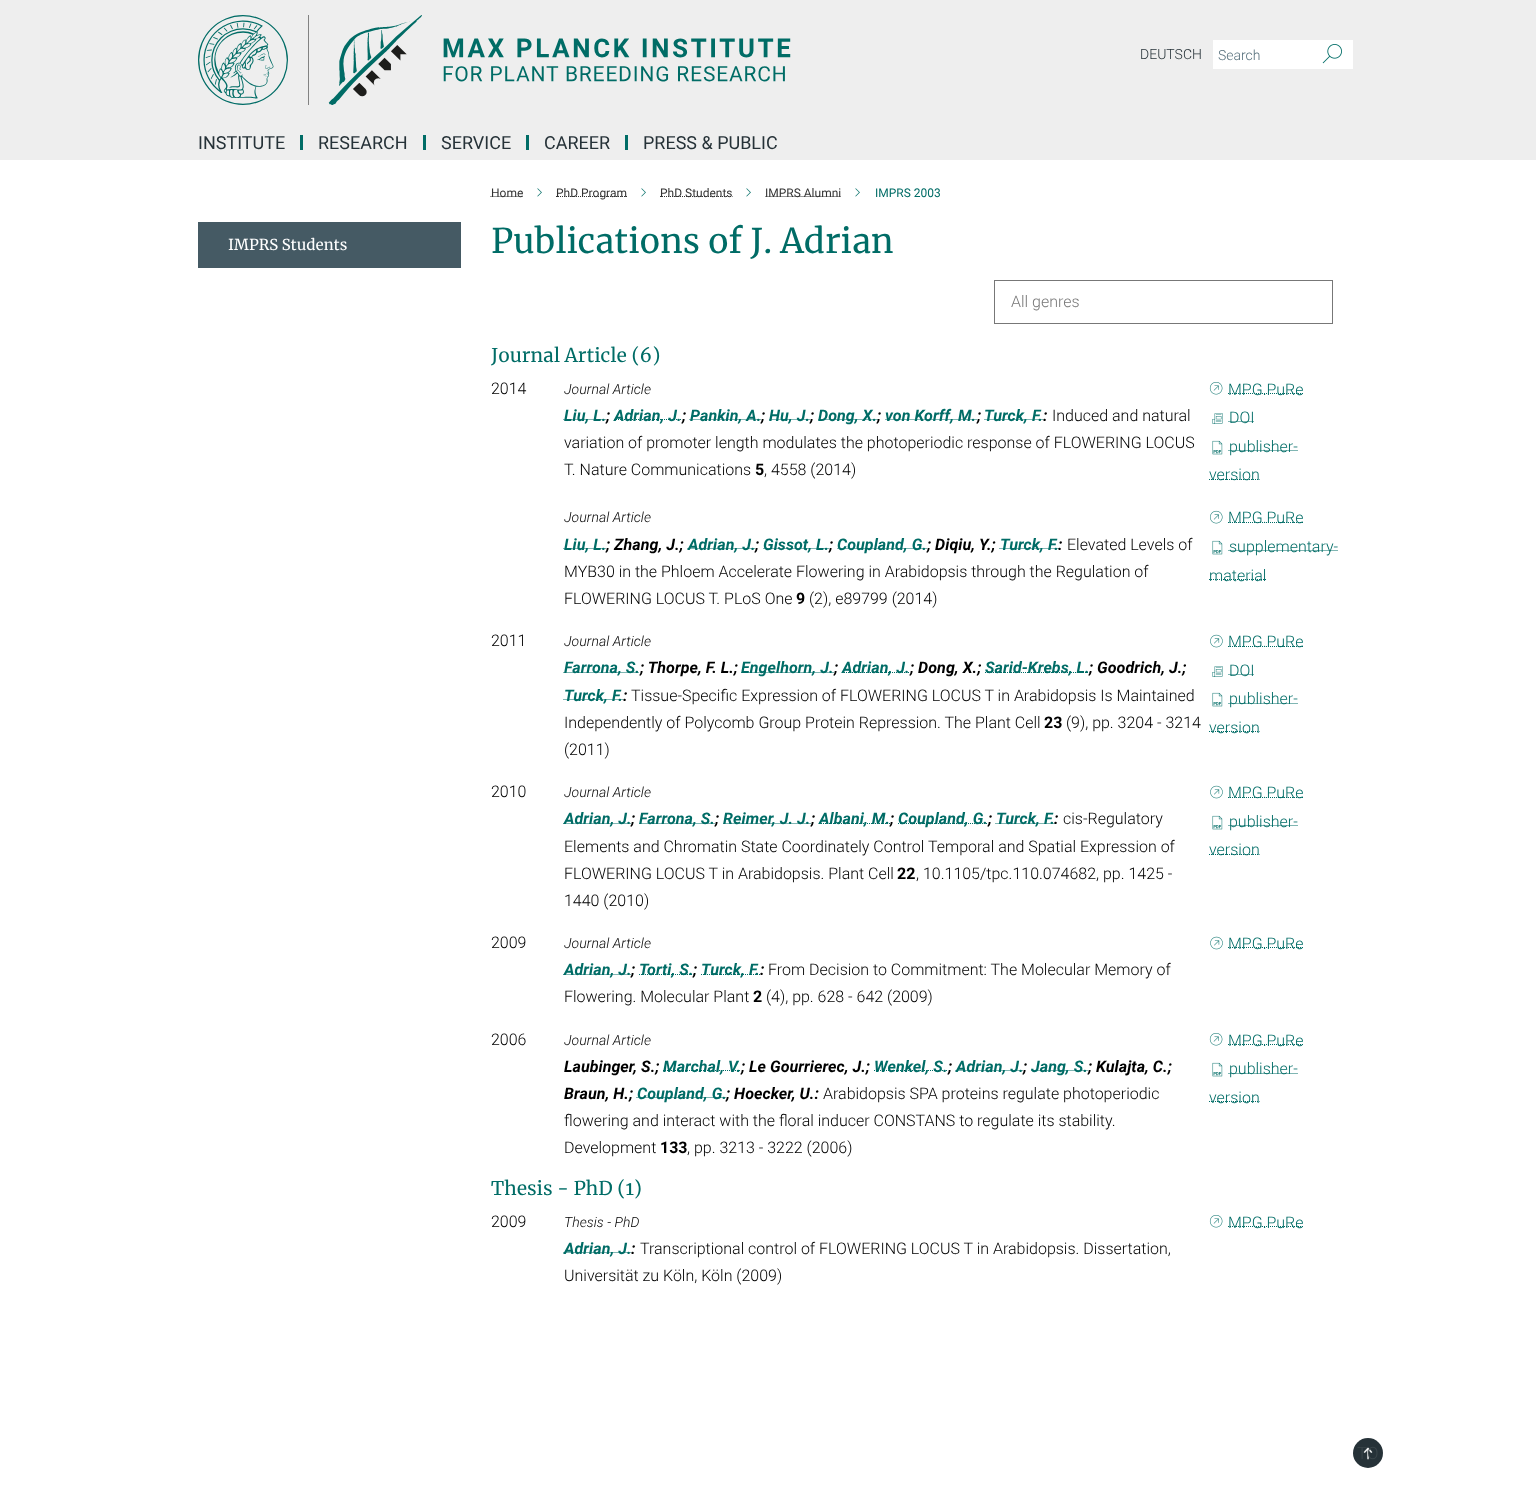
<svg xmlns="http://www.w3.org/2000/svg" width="1536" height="1485">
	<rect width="100%" height="100%" fill="#FFFFFF" />
	<rect x="0" y="0" width="1536" height="160" fill="#EEEEEE" />
	<image x="198" y="15" width="593" height="90" href="assets/img1.png" />
	<text x="1140" y="59" font-family="Roboto" font-size="14" font-weight="300" fill="#263238">DEUTSCH</text>
	<rect x="1213" y="40" width="140" height="29" fill="#FFFFFF" />
	<text x="1218" y="60" font-family="Roboto" font-size="14" font-weight="300" fill="#546E7A">Search</text>
	<image x="1322" y="44" width="20" height="20" href="assets/img2.png" />
	<rect x="300" y="135" width="3" height="15" fill="#006C66" />
	<text x="198" y="149" font-family="Roboto" font-size="18" fill="#263238">INSTITUTE</text>
	<rect x="423" y="135" width="3" height="15" fill="#006C66" />
	<text x="318" y="149" font-family="Roboto" font-size="18" fill="#263238">RESEARCH</text>
	<rect x="526" y="135" width="3" height="15" fill="#006C66" />
	<text x="441" y="149" font-family="Roboto" font-size="18" fill="#263238">SERVICE</text>
	<rect x="625" y="135" width="3" height="15" fill="#006C66" />
	<g font-family="Roboto" font-size="18" fill="#263238">
		<text x="544" y="149">CAREER</text>
		<text x="643" y="149">PRESS &amp; PUBLIC</text>
	</g>
	<rect x="198" y="222" width="263" height="46" fill="#455A64" />
	<text x="228" y="250" font-family="Merriweather" font-size="15" fill="#FFFFFF">IMPRS Students</text>
	<path d="M490.5 196.5H523" fill="none" stroke="#333333" stroke-dasharray="1 1" />
	<text x="491" y="197" font-family="Roboto" font-size="12" fill="#333333">Home</text>
	<image x="537" y="188" width="5" height="9" href="assets/img3.png" />
	<path d="M556 196.5H627" fill="none" stroke="#333333" stroke-dasharray="1 1" />
	<text x="556" y="197" font-family="Roboto" font-size="12" fill="#333333">PhD Program</text>
	<image x="641" y="188" width="5" height="9" href="assets/img3.png" />
	<path d="M660 196.5H732.5" fill="none" stroke="#333333" stroke-dasharray="1 1" />
	<text x="660" y="197" font-family="Roboto" font-size="12" fill="#333333">PhD Students</text>
	<image x="746" y="188" width="5" height="9" href="assets/img3.png" />
	<path d="M765.5 196.5H841.5" fill="none" stroke="#333333" stroke-dasharray="1 1" />
	<text x="765" y="197" font-family="Roboto" font-size="12" fill="#333333">IMPRS Alumni</text>
	<image x="855" y="188" width="5" height="9" href="assets/img3.png" />
	<text x="875" y="197" font-family="Roboto" font-size="12" fill="#006C66">IMPRS 2003</text>
	<text x="491" y="253" font-family="Merriweather" font-size="34" fill="#006C66">Publications of J. Adrian</text>
	<rect x="994.5" y="280.5" width="338" height="43" fill="none" stroke="#777777" />
	<text x="1011" y="307" font-family="Roboto" font-size="16" font-weight="300" fill="#777777">All genres</text>
	<text x="491" y="362" font-family="Merriweather" font-size="19" fill="#006C66">Journal Article (6)</text>
	<text x="491" y="394" font-family="Roboto" font-size="16" font-weight="300" fill="#000000">2014</text>
	<text x="564" y="394" font-family="Roboto" font-size="14" font-weight="300" font-style="italic" fill="#000000">Journal Article</text>
	<path d="M563.5 419.5H606" fill="none" stroke="#006C66" stroke-dasharray="1 1" />
	<text x="564" y="421" font-family="Roboto" font-size="16" font-weight="700" font-style="italic" fill="#006C66">Liu, L.</text>
	<text x="606" y="421" font-family="Roboto" font-size="16" font-weight="700" font-style="italic" fill="#000000">;</text>
	<path d="M614 419.5H681.5" fill="none" stroke="#006C66" stroke-dasharray="1 1" />
	<text x="614" y="421" font-family="Roboto" font-size="16" font-weight="700" font-style="italic" fill="#006C66">Adrian, J.</text>
	<text x="682" y="421" font-family="Roboto" font-size="16" font-weight="700" font-style="italic" fill="#000000">;</text>
	<path d="M689.5 419.5H761" fill="none" stroke="#006C66" stroke-dasharray="1 1" />
	<text x="690" y="421" font-family="Roboto" font-size="16" font-weight="700" font-style="italic" fill="#006C66">Pankin, A.</text>
	<text x="761" y="421" font-family="Roboto" font-size="16" font-weight="700" font-style="italic" fill="#000000">;</text>
	<path d="M769.5 419.5H810" fill="none" stroke="#006C66" stroke-dasharray="1 1" />
	<text x="769" y="421" font-family="Roboto" font-size="16" font-weight="700" font-style="italic" fill="#006C66">Hu, J.</text>
	<text x="810" y="421" font-family="Roboto" font-size="16" font-weight="700" font-style="italic" fill="#000000">;</text>
	<path d="M818.5 419.5H877.5" fill="none" stroke="#006C66" stroke-dasharray="1 1" />
	<text x="818" y="421" font-family="Roboto" font-size="16" font-weight="700" font-style="italic" fill="#006C66">Dong, X.</text>
	<text x="877" y="421" font-family="Roboto" font-size="16" font-weight="700" font-style="italic" fill="#000000">;</text>
	<path d="M885.5 419.5H976.5" fill="none" stroke="#006C66" stroke-dasharray="1 1" />
	<text x="885" y="421" font-family="Roboto" font-size="16" font-weight="700" font-style="italic" fill="#006C66">von Korff, M.</text>
	<text x="977" y="421" font-family="Roboto" font-size="16" font-weight="700" font-style="italic" fill="#000000">;</text>
	<path d="M984.5 419.5H1043" fill="none" stroke="#006C66" stroke-dasharray="1 1" />
	<text x="984" y="421" font-family="Roboto" font-size="16" font-weight="700" font-style="italic" fill="#006C66">Turck, F.</text>
	<text x="1043" y="421" font-family="Roboto" font-size="16" font-weight="700" font-style="italic" fill="#000000">:</text>
	<g font-family="Roboto" font-size="16" font-weight="300" fill="#000000">
		<text x="1052" y="421">Induced and natural</text>
		<text x="564" y="448">variation of promoter length modulates the photoperiodic response of FLOWERING LOCUS</text>
		<text x="564" y="475">T. Nature Communications</text>
	</g>
	<text x="755" y="475" font-family="Roboto" font-size="16" font-weight="700" fill="#000000">5</text>
	<text x="764" y="475" font-family="Roboto" font-size="16" font-weight="300" fill="#000000">, 4558 (2014)</text>
	<image x="1209" y="382" width="14" height="13" href="assets/img4.png" />
	<path d="M1228 393.5H1303.5" fill="none" stroke="#006C66" stroke-dasharray="1 1" />
	<text x="1228" y="395" font-family="Roboto" font-size="16" font-weight="300" fill="#006C66">MPG.PuRe</text>
	<image x="1212" y="413" width="11" height="11" href="assets/img5.png" />
	<path d="M1228.5 421.5H1254.5" fill="none" stroke="#006C66" stroke-dasharray="1 1" />
	<text x="1229" y="423" font-family="Roboto" font-size="16" font-weight="300" fill="#006C66">DOI</text>
	<image x="1212" y="440" width="11" height="15" href="assets/img6.png" />
	<path d="M1228.5 450.5H1297.5" fill="none" stroke="#006C66" stroke-dasharray="1 1" />
	<text x="1229" y="452" font-family="Roboto" font-size="16" font-weight="300" fill="#006C66">publisher-</text>
	<path d="M1209 479.5H1259.5" fill="none" stroke="#006C66" stroke-dasharray="1 1" />
	<text x="1209" y="480" font-family="Roboto" font-size="16" font-weight="300" fill="#006C66">version</text>
	<text x="564" y="522" font-family="Roboto" font-size="14" font-weight="300" font-style="italic" fill="#000000">Journal Article</text>
	<path d="M563.5 548.5H606" fill="none" stroke="#006C66" stroke-dasharray="1 1" />
	<text x="564" y="550" font-family="Roboto" font-size="16" font-weight="700" font-style="italic" fill="#006C66">Liu, L.</text>
	<text x="606" y="550" font-family="Roboto" font-size="16" font-weight="700" font-style="italic" fill="#000000">; Zhang, J.;</text>
	<path d="M687.5 548.5H755" fill="none" stroke="#006C66" stroke-dasharray="1 1" />
	<text x="688" y="550" font-family="Roboto" font-size="16" font-weight="700" font-style="italic" fill="#006C66">Adrian, J.</text>
	<text x="755" y="550" font-family="Roboto" font-size="16" font-weight="700" font-style="italic" fill="#000000">;</text>
	<path d="M763.5 548.5H829.5" fill="none" stroke="#006C66" stroke-dasharray="1 1" />
	<text x="763" y="550" font-family="Roboto" font-size="16" font-weight="700" font-style="italic" fill="#006C66">Gissot, L.</text>
	<text x="829" y="550" font-family="Roboto" font-size="16" font-weight="700" font-style="italic" fill="#000000">;</text>
	<path d="M837.5 548.5H927.5" fill="none" stroke="#006C66" stroke-dasharray="1 1" />
	<text x="837" y="550" font-family="Roboto" font-size="16" font-weight="700" font-style="italic" fill="#006C66">Coupland, G.</text>
	<text x="927" y="550" font-family="Roboto" font-size="16" font-weight="700" font-style="italic" fill="#000000">; Diqiu, Y.;</text>
	<path d="M999.5 548.5H1058.5" fill="none" stroke="#006C66" stroke-dasharray="1 1" />
	<text x="1000" y="550" font-family="Roboto" font-size="16" font-weight="700" font-style="italic" fill="#006C66">Turck, F.</text>
	<text x="1058" y="550" font-family="Roboto" font-size="16" font-weight="700" font-style="italic" fill="#000000">:</text>
	<g font-family="Roboto" font-size="16" font-weight="300" fill="#000000">
		<text x="1067" y="550">Elevated Levels of</text>
		<text x="564" y="577">MYB30 in the Phloem Accelerate Flowering in Arabidopsis through the Regulation of</text>
		<text x="564" y="604">FLOWERING LOCUS T. PLoS One</text>
	</g>
	<text x="796" y="604" font-family="Roboto" font-size="16" font-weight="700" fill="#000000">9</text>
	<text x="809" y="604" font-family="Roboto" font-size="16" font-weight="300" fill="#000000">(2), e89799 (2014)</text>
	<image x="1210" y="510" width="13" height="14" href="assets/img7.png" />
	<path d="M1228 522.5H1303.5" fill="none" stroke="#006C66" stroke-dasharray="1 1" />
	<text x="1228" y="523" font-family="Roboto" font-size="16" font-weight="300" fill="#006C66">MPG.PuRe</text>
	<image x="1212" y="540" width="11" height="15" href="assets/img6.png" />
	<path d="M1228.5 550.5H1338" fill="none" stroke="#006C66" stroke-dasharray="1 1" />
	<text x="1229" y="552" font-family="Roboto" font-size="16" font-weight="300" fill="#006C66">supplementary-</text>
	<path d="M1209 579.5H1266" fill="none" stroke="#006C66" stroke-dasharray="1 1" />
	<text x="1209" y="581" font-family="Roboto" font-size="16" font-weight="300" fill="#006C66">material</text>
	<text x="491" y="646" font-family="Roboto" font-size="16" font-weight="300" fill="#000000">2011</text>
	<text x="564" y="646" font-family="Roboto" font-size="14" font-weight="300" font-style="italic" fill="#000000">Journal Article</text>
	<path d="M563.5 672.5H639.5" fill="none" stroke="#006C66" stroke-dasharray="1 1" />
	<text x="564" y="673" font-family="Roboto" font-size="16" font-weight="700" font-style="italic" fill="#006C66">Farrona, S.</text>
	<text x="640" y="673" font-family="Roboto" font-size="16" font-weight="700" font-style="italic" fill="#000000">; Thorpe, F. L.;</text>
	<path d="M741.5 672.5H834" fill="none" stroke="#006C66" stroke-dasharray="1 1" />
	<text x="741" y="673" font-family="Roboto" font-size="16" font-weight="700" font-style="italic" fill="#006C66">Engelhorn, J.</text>
	<text x="834" y="673" font-family="Roboto" font-size="16" font-weight="700" font-style="italic" fill="#000000">;</text>
	<path d="M842 672.5H909.5" fill="none" stroke="#006C66" stroke-dasharray="1 1" />
	<text x="842" y="673" font-family="Roboto" font-size="16" font-weight="700" font-style="italic" fill="#006C66">Adrian, J.</text>
	<text x="910" y="673" font-family="Roboto" font-size="16" font-weight="700" font-style="italic" fill="#000000">; Dong, X.;</text>
	<path d="M985 672.5H1089.5" fill="none" stroke="#006C66" stroke-dasharray="1 1" />
	<text x="985" y="673" font-family="Roboto" font-size="16" font-weight="700" font-style="italic" fill="#006C66">Sarid-Krebs, L.</text>
	<text x="1089" y="673" font-family="Roboto" font-size="16" font-weight="700" font-style="italic" fill="#000000">; Goodrich, J.;</text>
	<path d="M563.5 699.5H622.5" fill="none" stroke="#006C66" stroke-dasharray="1 1" />
	<text x="564" y="701" font-family="Roboto" font-size="16" font-weight="700" font-style="italic" fill="#006C66">Turck, F.</text>
	<text x="623" y="701" font-family="Roboto" font-size="16" font-weight="700" font-style="italic" fill="#000000">:</text>
	<g font-family="Roboto" font-size="16" font-weight="300" fill="#000000">
		<text x="631" y="701">Tissue-Specific Expression of FLOWERING LOCUS T in Arabidopsis Is Maintained</text>
		<text x="564" y="728">Independently of Polycomb Group Protein Repression. The Plant Cell</text>
	</g>
	<text x="1044" y="728" font-family="Roboto" font-size="16" font-weight="700" fill="#000000">23</text>
	<g font-family="Roboto" font-size="16" font-weight="300" fill="#000000">
		<text x="1066" y="728">(9), pp. 3204 - 3214</text>
		<text x="564" y="755">(2011)</text>
	</g>
	<image x="1210" y="634" width="13" height="14" href="assets/img8.png" />
	<path d="M1228 646.5H1303.5" fill="none" stroke="#006C66" stroke-dasharray="1 1" />
	<text x="1228" y="647" font-family="Roboto" font-size="16" font-weight="300" fill="#006C66">MPG.PuRe</text>
	<image x="1212" y="666" width="11" height="11" href="assets/img5.png" />
	<path d="M1228.5 674.5H1254.5" fill="none" stroke="#006C66" stroke-dasharray="1 1" />
	<text x="1229" y="676" font-family="Roboto" font-size="16" font-weight="300" fill="#006C66">DOI</text>
	<image x="1212" y="692" width="11" height="15" href="assets/img6.png" />
	<path d="M1228.5 703.5H1297.5" fill="none" stroke="#006C66" stroke-dasharray="1 1" />
	<text x="1229" y="704" font-family="Roboto" font-size="16" font-weight="300" fill="#006C66">publisher-</text>
	<path d="M1209 731.5H1259.5" fill="none" stroke="#006C66" stroke-dasharray="1 1" />
	<text x="1209" y="733" font-family="Roboto" font-size="16" font-weight="300" fill="#006C66">version</text>
	<text x="491" y="797" font-family="Roboto" font-size="16" font-weight="300" fill="#000000">2010</text>
	<text x="564" y="797" font-family="Roboto" font-size="14" font-weight="300" font-style="italic" fill="#000000">Journal Article</text>
	<path d="M563.5 823.5H631" fill="none" stroke="#006C66" stroke-dasharray="1 1" />
	<text x="564" y="824" font-family="Roboto" font-size="16" font-weight="700" font-style="italic" fill="#006C66">Adrian, J.</text>
	<text x="631" y="824" font-family="Roboto" font-size="16" font-weight="700" font-style="italic" fill="#000000">;</text>
	<path d="M639.5 823.5H715.5" fill="none" stroke="#006C66" stroke-dasharray="1 1" />
	<text x="639" y="824" font-family="Roboto" font-size="16" font-weight="700" font-style="italic" fill="#006C66">Farrona, S.</text>
	<text x="715" y="824" font-family="Roboto" font-size="16" font-weight="700" font-style="italic" fill="#000000">;</text>
	<path d="M723.5 823.5H811" fill="none" stroke="#006C66" stroke-dasharray="1 1" />
	<text x="723" y="824" font-family="Roboto" font-size="16" font-weight="700" font-style="italic" fill="#006C66">Reimer, J. J.</text>
	<text x="811" y="824" font-family="Roboto" font-size="16" font-weight="700" font-style="italic" fill="#000000">;</text>
	<path d="M819 823.5H890" fill="none" stroke="#006C66" stroke-dasharray="1 1" />
	<text x="819" y="824" font-family="Roboto" font-size="16" font-weight="700" font-style="italic" fill="#006C66">Albani, M.</text>
	<text x="890" y="824" font-family="Roboto" font-size="16" font-weight="700" font-style="italic" fill="#000000">;</text>
	<path d="M898 823.5H988" fill="none" stroke="#006C66" stroke-dasharray="1 1" />
	<text x="898" y="824" font-family="Roboto" font-size="16" font-weight="700" font-style="italic" fill="#006C66">Coupland, G.</text>
	<text x="988" y="824" font-family="Roboto" font-size="16" font-weight="700" font-style="italic" fill="#000000">;</text>
	<path d="M995.5 823.5H1054.5" fill="none" stroke="#006C66" stroke-dasharray="1 1" />
	<text x="996" y="824" font-family="Roboto" font-size="16" font-weight="700" font-style="italic" fill="#006C66">Turck, F.</text>
	<text x="1054" y="824" font-family="Roboto" font-size="16" font-weight="700" font-style="italic" fill="#000000">:</text>
	<g font-family="Roboto" font-size="16" font-weight="300" fill="#000000">
		<text x="1063" y="824">cis-Regulatory</text>
		<text x="564" y="852">Elements and Chromatin State Coordinately Control Temporal and Spatial Expression of</text>
		<text x="564" y="879">FLOWERING LOCUS T in Arabidopsis. Plant Cell</text>
	</g>
	<text x="897" y="879" font-family="Roboto" font-size="16" font-weight="700" fill="#000000">22</text>
	<g font-family="Roboto" font-size="16" font-weight="300" fill="#000000">
		<text x="916" y="879">, 10.1105/tpc.110.074682, pp. 1425 -</text>
		<text x="564" y="906">1440 (2010)</text>
	</g>
	<image x="1210" y="785" width="13" height="14" href="assets/img9.png" />
	<path d="M1228 797.5H1303.5" fill="none" stroke="#006C66" stroke-dasharray="1 1" />
	<text x="1228" y="798" font-family="Roboto" font-size="16" font-weight="300" fill="#006C66">MPG.PuRe</text>
	<image x="1212" y="815" width="11" height="15" href="assets/img6.png" />
	<path d="M1228.5 825.5H1297.5" fill="none" stroke="#006C66" stroke-dasharray="1 1" />
	<text x="1229" y="827" font-family="Roboto" font-size="16" font-weight="300" fill="#006C66">publisher-</text>
	<path d="M1209 854.5H1259.5" fill="none" stroke="#006C66" stroke-dasharray="1 1" />
	<text x="1209" y="855" font-family="Roboto" font-size="16" font-weight="300" fill="#006C66">version</text>
	<text x="491" y="948" font-family="Roboto" font-size="16" font-weight="300" fill="#000000">2009</text>
	<text x="564" y="948" font-family="Roboto" font-size="14" font-weight="300" font-style="italic" fill="#000000">Journal Article</text>
	<path d="M563.5 974.5H631" fill="none" stroke="#006C66" stroke-dasharray="1 1" />
	<text x="564" y="975" font-family="Roboto" font-size="16" font-weight="700" font-style="italic" fill="#006C66">Adrian, J.</text>
	<text x="631" y="975" font-family="Roboto" font-size="16" font-weight="700" font-style="italic" fill="#000000">;</text>
	<path d="M639 974.5H693.5" fill="none" stroke="#006C66" stroke-dasharray="1 1" />
	<text x="639" y="975" font-family="Roboto" font-size="16" font-weight="700" font-style="italic" fill="#006C66">Torti, S.</text>
	<text x="693" y="975" font-family="Roboto" font-size="16" font-weight="700" font-style="italic" fill="#000000">;</text>
	<path d="M701 974.5H760" fill="none" stroke="#006C66" stroke-dasharray="1 1" />
	<text x="701" y="975" font-family="Roboto" font-size="16" font-weight="700" font-style="italic" fill="#006C66">Turck, F.</text>
	<text x="760" y="975" font-family="Roboto" font-size="16" font-weight="700" font-style="italic" fill="#000000">:</text>
	<g font-family="Roboto" font-size="16" font-weight="300" fill="#000000">
		<text x="768" y="975">From Decision to Commitment: The Molecular Memory of</text>
		<text x="564" y="1002">Flowering. Molecular Plant</text>
	</g>
	<text x="753" y="1002" font-family="Roboto" font-size="16" font-weight="700" fill="#000000">2</text>
	<text x="766" y="1002" font-family="Roboto" font-size="16" font-weight="300" fill="#000000">(4), pp. 628 - 642 (2009)</text>
	<image x="1210" y="936" width="13" height="14" href="assets/img10.png" />
	<path d="M1228 947.5H1303.5" fill="none" stroke="#006C66" stroke-dasharray="1 1" />
	<text x="1228" y="949" font-family="Roboto" font-size="16" font-weight="300" fill="#006C66">MPG.PuRe</text>
	<text x="491" y="1045" font-family="Roboto" font-size="16" font-weight="300" fill="#000000">2006</text>
	<text x="564" y="1045" font-family="Roboto" font-size="14" font-weight="300" font-style="italic" fill="#000000">Journal Article</text>
	<text x="564" y="1072" font-family="Roboto" font-size="16" font-weight="700" font-style="italic" fill="#000000">Laubinger, S.;</text>
	<path d="M663 1070.5H741" fill="none" stroke="#006C66" stroke-dasharray="1 1" />
	<text x="663" y="1072" font-family="Roboto" font-size="16" font-weight="700" font-style="italic" fill="#006C66">Marchal, V.</text>
	<text x="741" y="1072" font-family="Roboto" font-size="16" font-weight="700" font-style="italic" fill="#000000">; Le Gourrierec, J.;</text>
	<path d="M874 1070.5H947.5" fill="none" stroke="#006C66" stroke-dasharray="1 1" />
	<text x="874" y="1072" font-family="Roboto" font-size="16" font-weight="700" font-style="italic" fill="#006C66">Wenkel, S.</text>
	<text x="948" y="1072" font-family="Roboto" font-size="16" font-weight="700" font-style="italic" fill="#000000">;</text>
	<path d="M955.5 1070.5H1023" fill="none" stroke="#006C66" stroke-dasharray="1 1" />
	<text x="956" y="1072" font-family="Roboto" font-size="16" font-weight="700" font-style="italic" fill="#006C66">Adrian, J.</text>
	<text x="1023" y="1072" font-family="Roboto" font-size="16" font-weight="700" font-style="italic" fill="#000000">;</text>
	<path d="M1031.5 1070.5H1088" fill="none" stroke="#006C66" stroke-dasharray="1 1" />
	<text x="1031" y="1072" font-family="Roboto" font-size="16" font-weight="700" font-style="italic" fill="#006C66">Jang, S.</text>
	<g font-family="Roboto" font-size="16" font-weight="700" font-style="italic" fill="#000000">
		<text x="1088" y="1072">; Kulajta, C.;</text>
		<text x="564" y="1099">Braun, H.;</text>
	</g>
	<path d="M636.5 1097.5H726.5" fill="none" stroke="#006C66" stroke-dasharray="1 1" />
	<text x="637" y="1099" font-family="Roboto" font-size="16" font-weight="700" font-style="italic" fill="#006C66">Coupland, G.</text>
	<text x="726" y="1099" font-family="Roboto" font-size="16" font-weight="700" font-style="italic" fill="#000000">; Hoecker, U.:</text>
	<g font-family="Roboto" font-size="16" font-weight="300" fill="#000000">
		<text x="823" y="1099">Arabidopsis SPA proteins regulate photoperiodic</text>
		<text x="564" y="1126">flowering and interact with the floral inducer CONSTANS to regulate its stability.</text>
		<text x="564" y="1153">Development</text>
	</g>
	<text x="660" y="1153" font-family="Roboto" font-size="16" font-weight="700" fill="#000000">133</text>
	<text x="687" y="1153" font-family="Roboto" font-size="16" font-weight="300" fill="#000000">, pp. 3213 - 3222 (2006)</text>
	<image x="1209" y="1033" width="14" height="13" href="assets/img11.png" />
	<path d="M1228 1044.5H1303.5" fill="none" stroke="#006C66" stroke-dasharray="1 1" />
	<text x="1228" y="1046" font-family="Roboto" font-size="16" font-weight="300" fill="#006C66">MPG.PuRe</text>
	<image x="1212" y="1062" width="11" height="15" href="assets/img6.png" />
	<path d="M1228.5 1073.5H1297.5" fill="none" stroke="#006C66" stroke-dasharray="1 1" />
	<text x="1229" y="1074" font-family="Roboto" font-size="16" font-weight="300" fill="#006C66">publisher-</text>
	<path d="M1209 1101.5H1259.5" fill="none" stroke="#006C66" stroke-dasharray="1 1" />
	<text x="1209" y="1103" font-family="Roboto" font-size="16" font-weight="300" fill="#006C66">version</text>
	<text x="491" y="1195" font-family="Merriweather" font-size="19" fill="#006C66">Thesis - PhD (1)</text>
	<text x="491" y="1227" font-family="Roboto" font-size="16" font-weight="300" fill="#000000">2009</text>
	<text x="564" y="1227" font-family="Roboto" font-size="14" font-weight="300" font-style="italic" fill="#000000">Thesis - PhD</text>
	<path d="M563.5 1252.5H631" fill="none" stroke="#006C66" stroke-dasharray="1 1" />
	<text x="564" y="1254" font-family="Roboto" font-size="16" font-weight="700" font-style="italic" fill="#006C66">Adrian, J.</text>
	<text x="631" y="1254" font-family="Roboto" font-size="16" font-weight="700" font-style="italic" fill="#000000">:</text>
	<g font-family="Roboto" font-size="16" font-weight="300" fill="#000000">
		<text x="640" y="1254">Transcriptional control of FLOWERING LOCUS T in Arabidopsis. Dissertation,</text>
		<text x="564" y="1281">Universität zu Köln, Köln (2009)</text>
	</g>
	<image x="1209" y="1215" width="14" height="13" href="assets/img12.png" />
	<path d="M1228 1226.5H1303.5" fill="none" stroke="#006C66" stroke-dasharray="1 1" />
	<text x="1228" y="1228" font-family="Roboto" font-size="16" font-weight="300" fill="#006C66">MPG.PuRe</text>
	<circle cx="1368" cy="1453" r="15" fill="#263238" />
	<image x="1363" y="1447" width="10" height="13" href="assets/img13.png" />
	<text x="1357" y="1459" font-family="Roboto" font-size="17" font-weight="300" fill="#3A454A">TO</text>
</svg>
